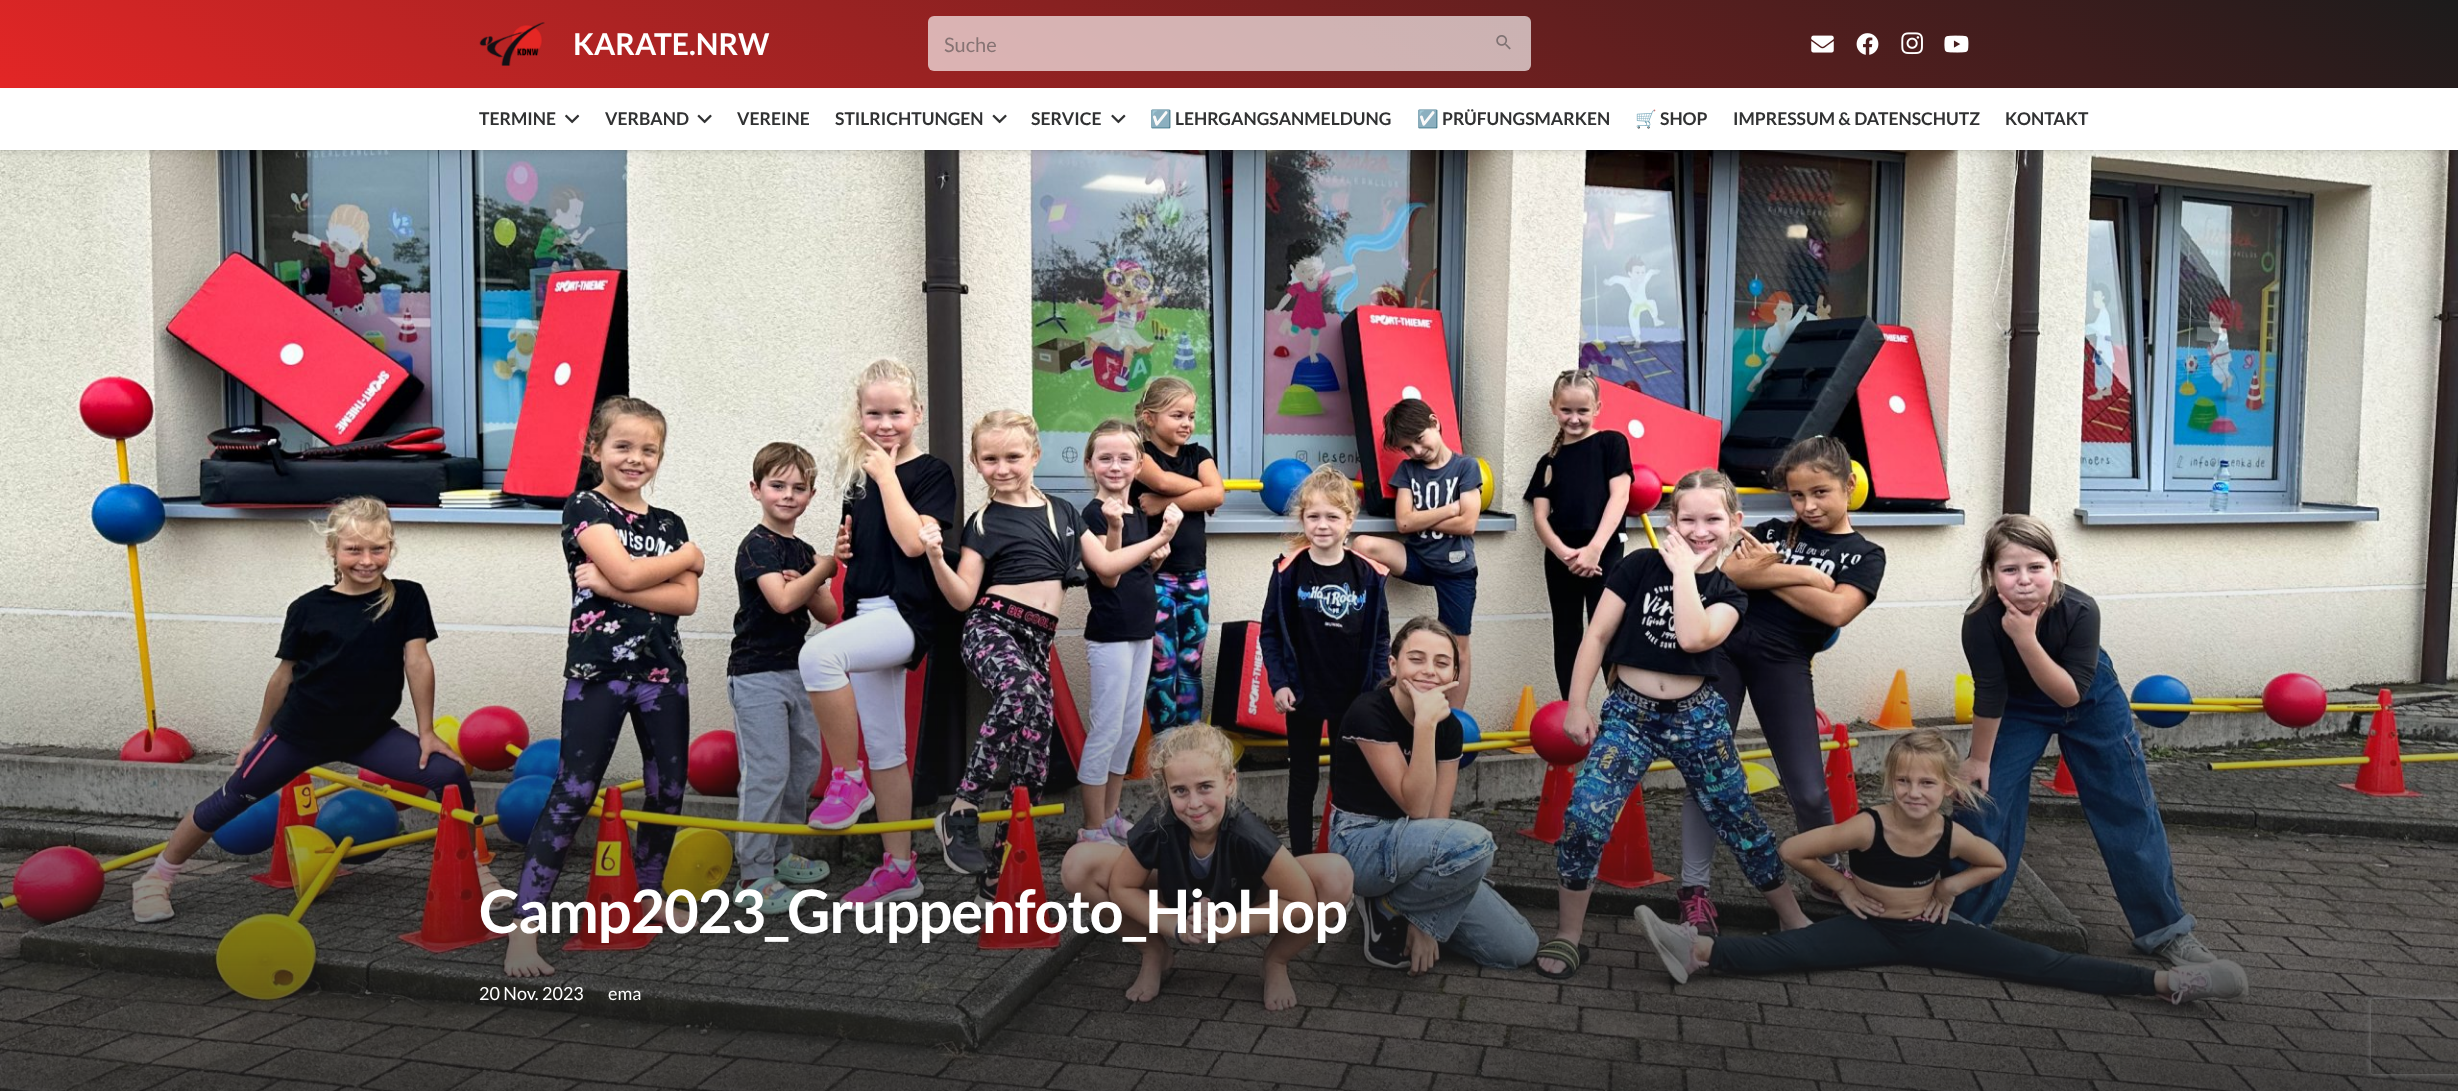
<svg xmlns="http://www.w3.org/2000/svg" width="2458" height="1091">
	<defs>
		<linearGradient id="g1" gradientUnits="userSpaceOnUse" x1="1654" y1="-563" x2="804" y2="651"><stop offset="0" stop-color="#1B1B1B" /><stop offset="1" stop-color="#E32626" /></linearGradient>
		<clipPath id="clip1"><path d="M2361 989H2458V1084H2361ZM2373.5 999H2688.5C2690 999 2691 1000 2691 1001.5V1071.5C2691 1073 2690 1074 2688.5 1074H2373.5C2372 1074 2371 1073 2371 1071.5V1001.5C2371 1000 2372 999 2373.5 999Z" clip-rule="evenodd" /></clipPath>
	</defs>
	<rect width="100%" height="100%" fill="#FFFFFF" />
	<rect x="0" y="0" width="2458" height="88" fill="url(#g1)" />
	<image x="479" y="22" width="66" height="44" href="assets/img1.png" />
	<text x="573" y="55" font-family="Lato" font-size="30" font-weight="700" fill="#FFFFFF">KARATE.NRW</text>
	<rect x="928" y="16" width="603" height="55" rx="6" fill="#FFFFFF" fill-opacity="0.66" />
	<text x="944" y="52" font-family="Lato" font-size="20" fill="#867373">Suche</text>
	<image x="1496" y="35" width="15" height="15" href="assets/img2.png" />
	<image x="1811" y="35" width="23" height="18" href="assets/img3.png" />
	<image x="1856" y="33" width="23" height="22" href="assets/img4.png" />
	<image x="1901" y="32" width="22" height="23" href="assets/img5.png" />
	<image x="1944" y="35" width="25" height="18" href="assets/img6.png" />
	<image x="0" y="150" width="2458" height="941" href="assets/img10.png" />
	<rect x="1" y="91" width="2457" height="60" fill="#000000" fill-opacity="0.05" filter="blur(0.5px)" />
	<rect x="1" y="93" width="2457" height="60" fill="#000000" fill-opacity="0.1" filter="blur(3px)" />
	<rect x="0" y="89" width="2458" height="61" fill="#FFFFFF" />
	<text x="479" y="125" font-family="Lato" font-size="17.5" font-weight="700" fill="#313233">TERMINE</text>
	<image x="565" y="114" width="15" height="10" href="assets/img7.png" />
	<text x="605" y="125" font-family="Lato" font-size="17.5" font-weight="700" fill="#313233">VERBAND</text>
	<image x="697" y="114" width="15" height="10" href="assets/img8.png" />
	<g font-family="Lato" font-size="17.5" font-weight="700" fill="#313233">
		<text x="737" y="125">VEREINE</text>
		<text x="835" y="125">STILRICHTUNGEN</text>
	</g>
	<image x="992" y="114" width="15" height="10" href="assets/img8.png" />
	<text x="1031" y="125" font-family="Lato" font-size="17.5" font-weight="700" fill="#313233">SERVICE</text>
	<image x="1111" y="114" width="15" height="10" href="assets/img9.png" />
	<text x="1150" y="125" font-family="Noto Color Emoji" font-size="17.5" font-weight="700" fill="#313233">☑️</text>
	<text x="1175" y="125" font-family="Lato" font-size="17.5" font-weight="700" fill="#313233">LEHRGANGSANMELDUNG</text>
	<text x="1417" y="125" font-family="Noto Color Emoji" font-size="17.5" font-weight="700" fill="#313233">☑️</text>
	<text x="1442" y="125" font-family="Lato" font-size="17.5" font-weight="700" fill="#313233">PRÜFUNGSMARKEN</text>
	<text x="1635" y="125" font-family="Noto Color Emoji" font-size="17.5" font-weight="700" fill="#313233">🛒</text>
	<g font-family="Lato" font-size="17.5" font-weight="700" fill="#313233">
		<text x="1660" y="125">SHOP</text>
		<text x="1733" y="125">IMPRESSUM &amp; DATENSCHUTZ</text>
		<text x="2005" y="125">KONTAKT</text>
	</g>
	<text x="479" y="933" font-family="Lato" font-size="60" font-weight="700" letter-spacing="-1.2" fill="#FFFFFF">Camp2023_Gruppenfoto_HipHop</text>
	<g font-family="Lato" font-size="18" fill="#FFFFFF">
		<text x="479" y="1000">20 Nov. 2023</text>
		<text x="608" y="1000">ema</text>
	</g>
	<g clip-path="url(#clip1)">
		<rect x="2371" y="999" width="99" height="75" rx="2.5" fill="#808080" filter="blur(3px)" />
	</g>
</svg>
